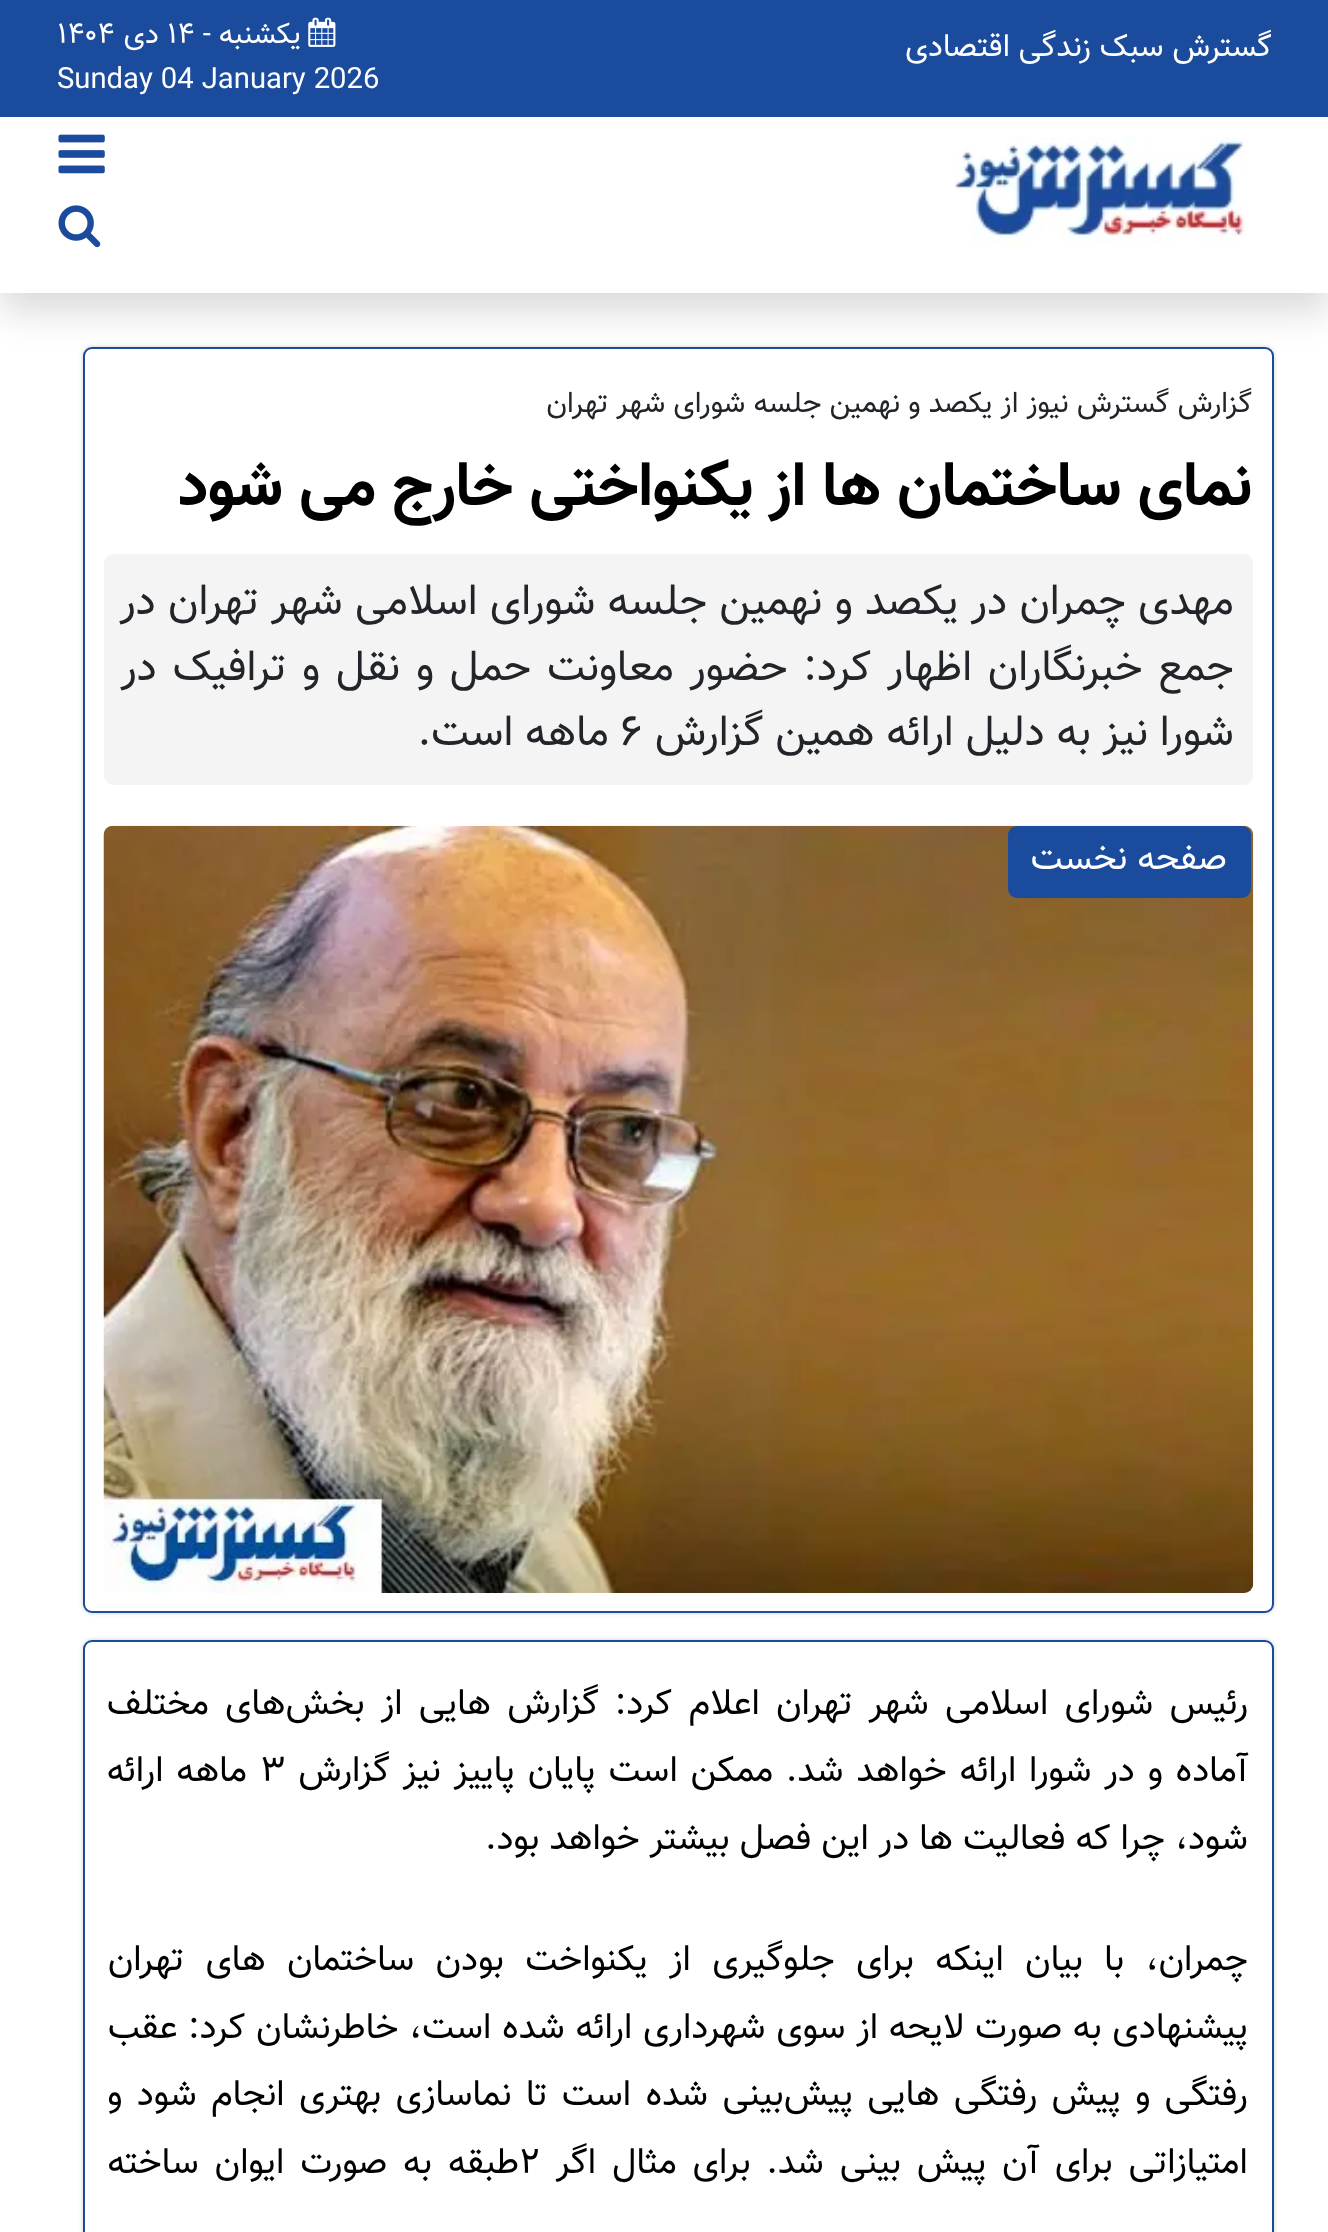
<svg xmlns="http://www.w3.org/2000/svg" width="1328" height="2232">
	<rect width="100%" height="100%" fill="#FFFFFF" />
	<rect x="83" y="347" width="1191" height="1266" rx="9" fill="#000000" fill-opacity="0.2" filter="blur(2px)" />
	<rect x="84" y="348" width="1189" height="1264" rx="8" fill="#FFFFFF" stroke="#1B4B9D" stroke-width="2" />
	<rect x="0" y="18" width="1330" height="293" fill="#000000" fill-opacity="0.15" filter="blur(18px)" />
	<rect x="0" y="0" width="1328" height="117" fill="#1B4B9D" />
	<text x="1272" y="56" font-family="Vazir" font-size="31.5" direction="rtl" fill="#FFFFFF">گسترش سبک زندگی اقتصادی</text>
	<image x="308" y="17" width="28" height="30" href="assets/img1.png" />
	<text x="301" y="43" font-family="Vazir" font-size="29.25" direction="rtl" fill="#FFFFFF">يکشنبه -</text>
	<text x="167" y="43" font-family="Vazir" font-size="29.25" fill="#FFFFFF">۱۴</text>
	<text x="159" y="43" font-family="Vazir" font-size="29.25" direction="rtl" fill="#FFFFFF">دی</text>
	<g font-family="Vazir" font-size="29.25" fill="#FFFFFF">
		<text x="57" y="43">۱۴۰۴</text>
		<text x="57" y="88">Sunday 04 January 2026</text>
	</g>
	<rect x="0" y="117" width="1328" height="176" fill="#FFFFFF" />
	<image x="954" y="137" width="291" height="108" href="assets/img2.png" />
	<image x="58" y="134" width="47" height="40" href="assets/img3.png" />
	<image x="58" y="205" width="43" height="43" href="assets/img4.png" />
	<text x="1252" y="412" font-family="Vazir" font-size="29.25" direction="rtl" fill="#212529">گزارش گسترش نیوز از یکصد و نهمین جلسه شورای شهر تهران</text>
	<text x="1252" y="505" font-family="Vazir" font-size="63" font-weight="700" direction="rtl" fill="#000000">نمای ساختمان ها از یکنواختی خارج می شود</text>
	<rect x="104" y="554" width="1149" height="231" rx="9" fill="#F4F4F4" />
	<g font-family="Vazir" font-size="42.75" direction="rtl" fill="#212529">
		<text x="1234" y="614" word-spacing="0.5">مهدی چمران در یکصد و نهمین جلسه شورای اسلامی شهر تهران در</text>
		<text x="1234" y="680" word-spacing="4">جمع خبرنگاران اظهار کرد: حضور معاونت حمل و نقل و ترافیک در</text>
		<text x="1234" y="745">شورا نیز به دلیل ارائه همین گزارش</text>
	</g>
	<text x="620" y="745" font-family="Vazir" font-size="42.75" fill="#212529">۶</text>
	<text x="609" y="745" font-family="Vazir" font-size="42.75" direction="rtl" fill="#212529">ماهه است.</text>
	<image x="103" y="825" width="1151" height="768" href="assets/img5.png" />
	<rect x="1008" y="826" width="243" height="72" rx="9" fill="#1B4B9D" />
	<text x="1227" y="869" font-family="Vazir" font-size="36" direction="rtl" fill="#FFFFFF">صفحه نخست</text>
	<rect x="83" y="1640" width="1191" height="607" rx="9" fill="#000000" fill-opacity="0.2" filter="blur(2px)" />
	<rect x="84" y="1641" width="1189" height="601" rx="8" fill="#FFFFFF" stroke="#1B4B9D" stroke-width="2" />
	<g font-family="Vazir" font-size="36" direction="rtl" fill="#000000">
		<text x="1248" y="1714" word-spacing="6.25">رئیس شورای اسلامی شهر تهران اعلام کرد: گزارش هایی از بخش‌های مختلف</text>
		<text x="1248" y="1781" word-spacing="2.9">آماده و در شورا ارائه خواهد شد. ممکن است پایان پاییز نیز گزارش</text>
	</g>
	<text x="260" y="1781" font-family="Vazir" font-size="36" fill="#000000">۳</text>
	<g font-family="Vazir" font-size="36" direction="rtl" fill="#000000">
		<text x="247" y="1781" word-spacing="2.9">ماهه ارائه</text>
		<text x="1248" y="1849">شود، چرا که فعالیت ها در این فصل بیشتر خواهد بود.</text>
		<text x="1248" y="1970" word-spacing="11.4">چمران، با بیان اینکه برای جلوگیری از یکنواخت بودن ساختمان های تهران</text>
		<text x="1248" y="2038" word-spacing="0.75">پیشنهادی به صورت لایحه از سوی شهرداری ارائه شده است، خاطرنشان کرد: عقب</text>
		<text x="1248" y="2105" word-spacing="4.4">رفتگی و پیش رفتگی هایی پیش‌بینی شده است تا نماسازی بهتری انجام شود و</text>
		<text x="1248" y="2173" word-spacing="6">امتیازاتی برای آن پیش بینی شد. برای مثال اگر</text>
	</g>
	<text x="519" y="2173" font-family="Vazir" font-size="36" fill="#000000">۲</text>
	<text x="519" y="2173" word-spacing="6" font-family="Vazir" font-size="36" direction="rtl" fill="#000000">طبقه به صورت ایوان ساخته</text>
</svg>
